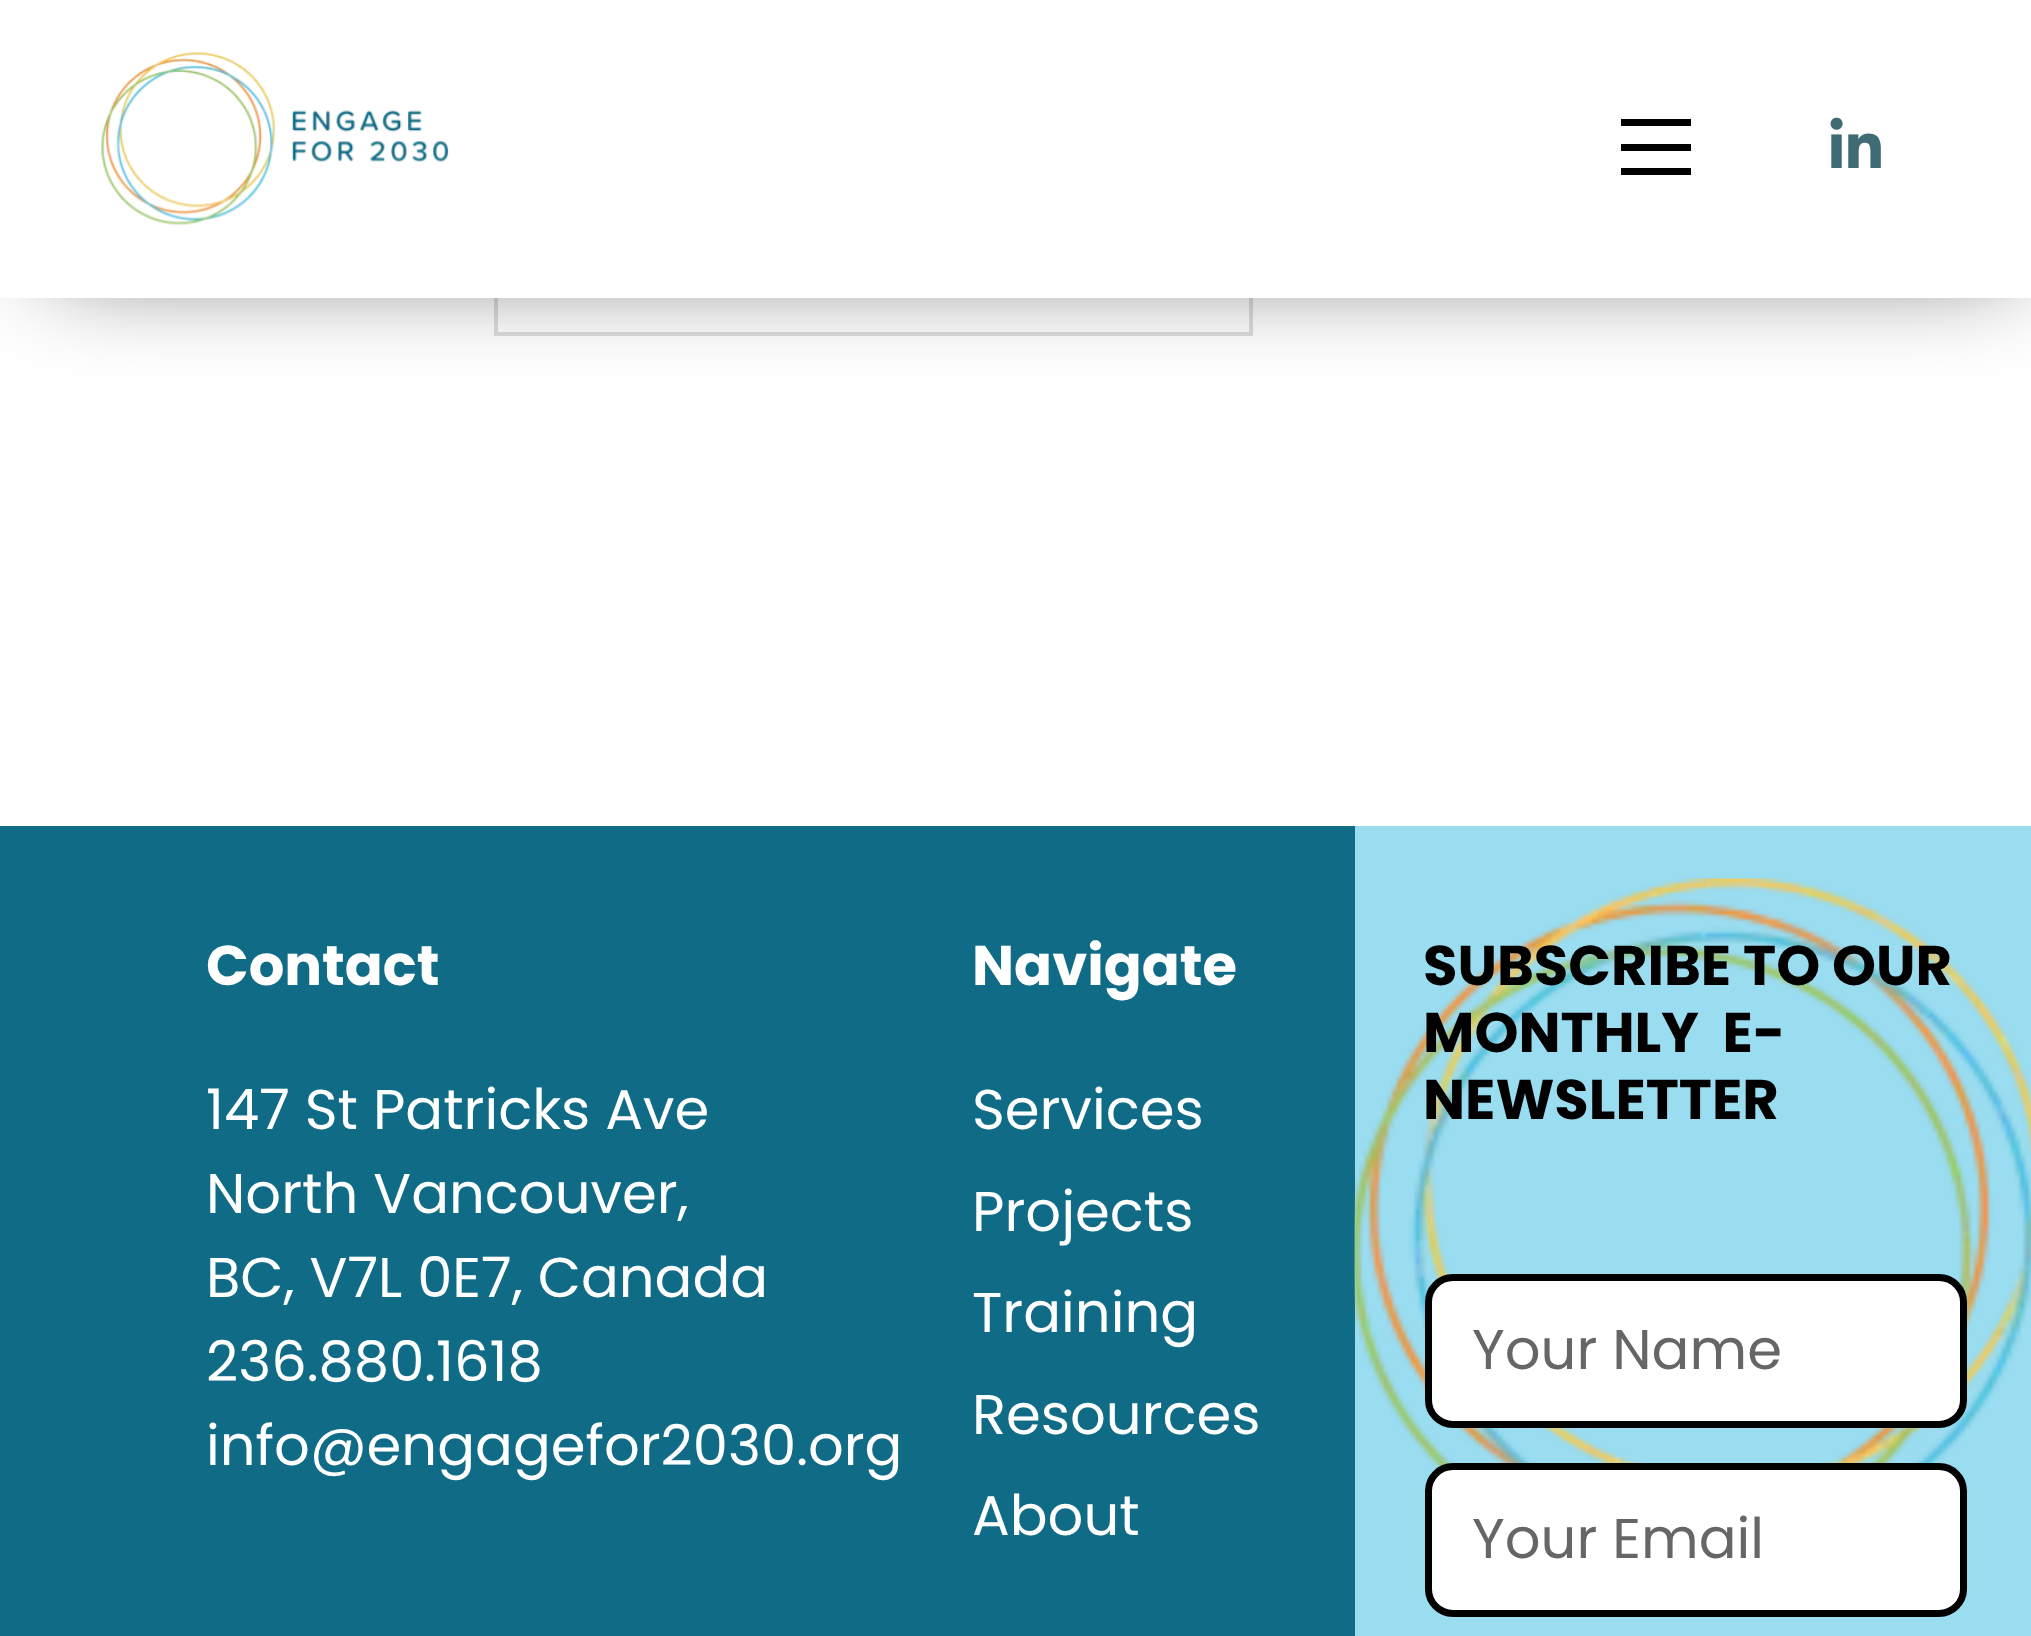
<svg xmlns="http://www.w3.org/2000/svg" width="2031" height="1636">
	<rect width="100%" height="100%" fill="#FFFFFF" />
	<rect x="496" y="191" width="755" height="143" fill="none" stroke="#DDDEDF" stroke-width="4" />
	<rect x="53" y="35" width="1963" height="228" fill="#000000" fill-opacity="0.7" filter="blur(52.5px)" />
	<rect x="0" y="0" width="2031" height="298" fill="#FFFFFF" />
	<image x="101" y="52" width="348" height="173" href="assets/img1.png" />
	<rect x="1621" y="119" width="70" height="7" fill="#000000" />
	<rect x="1621" y="144" width="70" height="7" fill="#000000" />
	<rect x="1621" y="168" width="70" height="7" fill="#000000" />
	<image x="1830" y="117" width="51" height="51" href="assets/img2.png" />
	<rect x="0" y="826" width="1355" height="810" fill="#106C86" />
	<text x="206" y="985" font-family="Poppins" font-size="56" font-weight="700" fill="#FFFFFF">Contact</text>
	<g font-family="Poppins" font-size="56" fill="#FFFFFF">
		<text x="206" y="1129">147 St Patricks Ave</text>
		<text x="206" y="1213">North Vancouver,</text>
		<text x="206" y="1297">BC, V7L 0E7, Canada</text>
		<text x="206" y="1381">236.880.1618</text>
		<text x="206" y="1465">info@engagefor2030.org</text>
	</g>
	<text x="972" y="985" font-family="Poppins" font-size="56" font-weight="700" fill="#FFFFFF">Navigate</text>
	<g font-family="Poppins" font-size="56" fill="#FFFFFF">
		<text x="972" y="1129">Services</text>
		<text x="972" y="1231">Projects</text>
		<text x="972" y="1332">Training</text>
		<text x="972" y="1434">Resources</text>
		<text x="972" y="1535">About</text>
	</g>
	<rect x="1355" y="826" width="676" height="810" fill="#9ADCF0" />
	<image x="1354" y="878" width="677" height="591" href="assets/img3.png" />
	<g font-family="Poppins" font-size="56" font-weight="700" fill="#000000">
		<text x="1423" y="985">SUBSCRIBE TO OUR</text>
		<text x="1423" y="1052" xml:space="preserve">MONTHLY  E-</text>
		<text x="1423" y="1119">NEWSLETTER</text>
	</g>
	<rect x="1428.5" y="1277.5" width="535" height="147" rx="24.5" fill="#FFFFFF" stroke="#000000" stroke-width="7" />
	<text x="1472" y="1369" font-family="Poppins" font-size="56" fill="#666666">Your Name</text>
	<rect x="1428.5" y="1466.5" width="535" height="147" rx="24.5" fill="#FFFFFF" stroke="#000000" stroke-width="7" />
	<text x="1472" y="1558" font-family="Poppins" font-size="56" fill="#666666">Your Email</text>
</svg>
